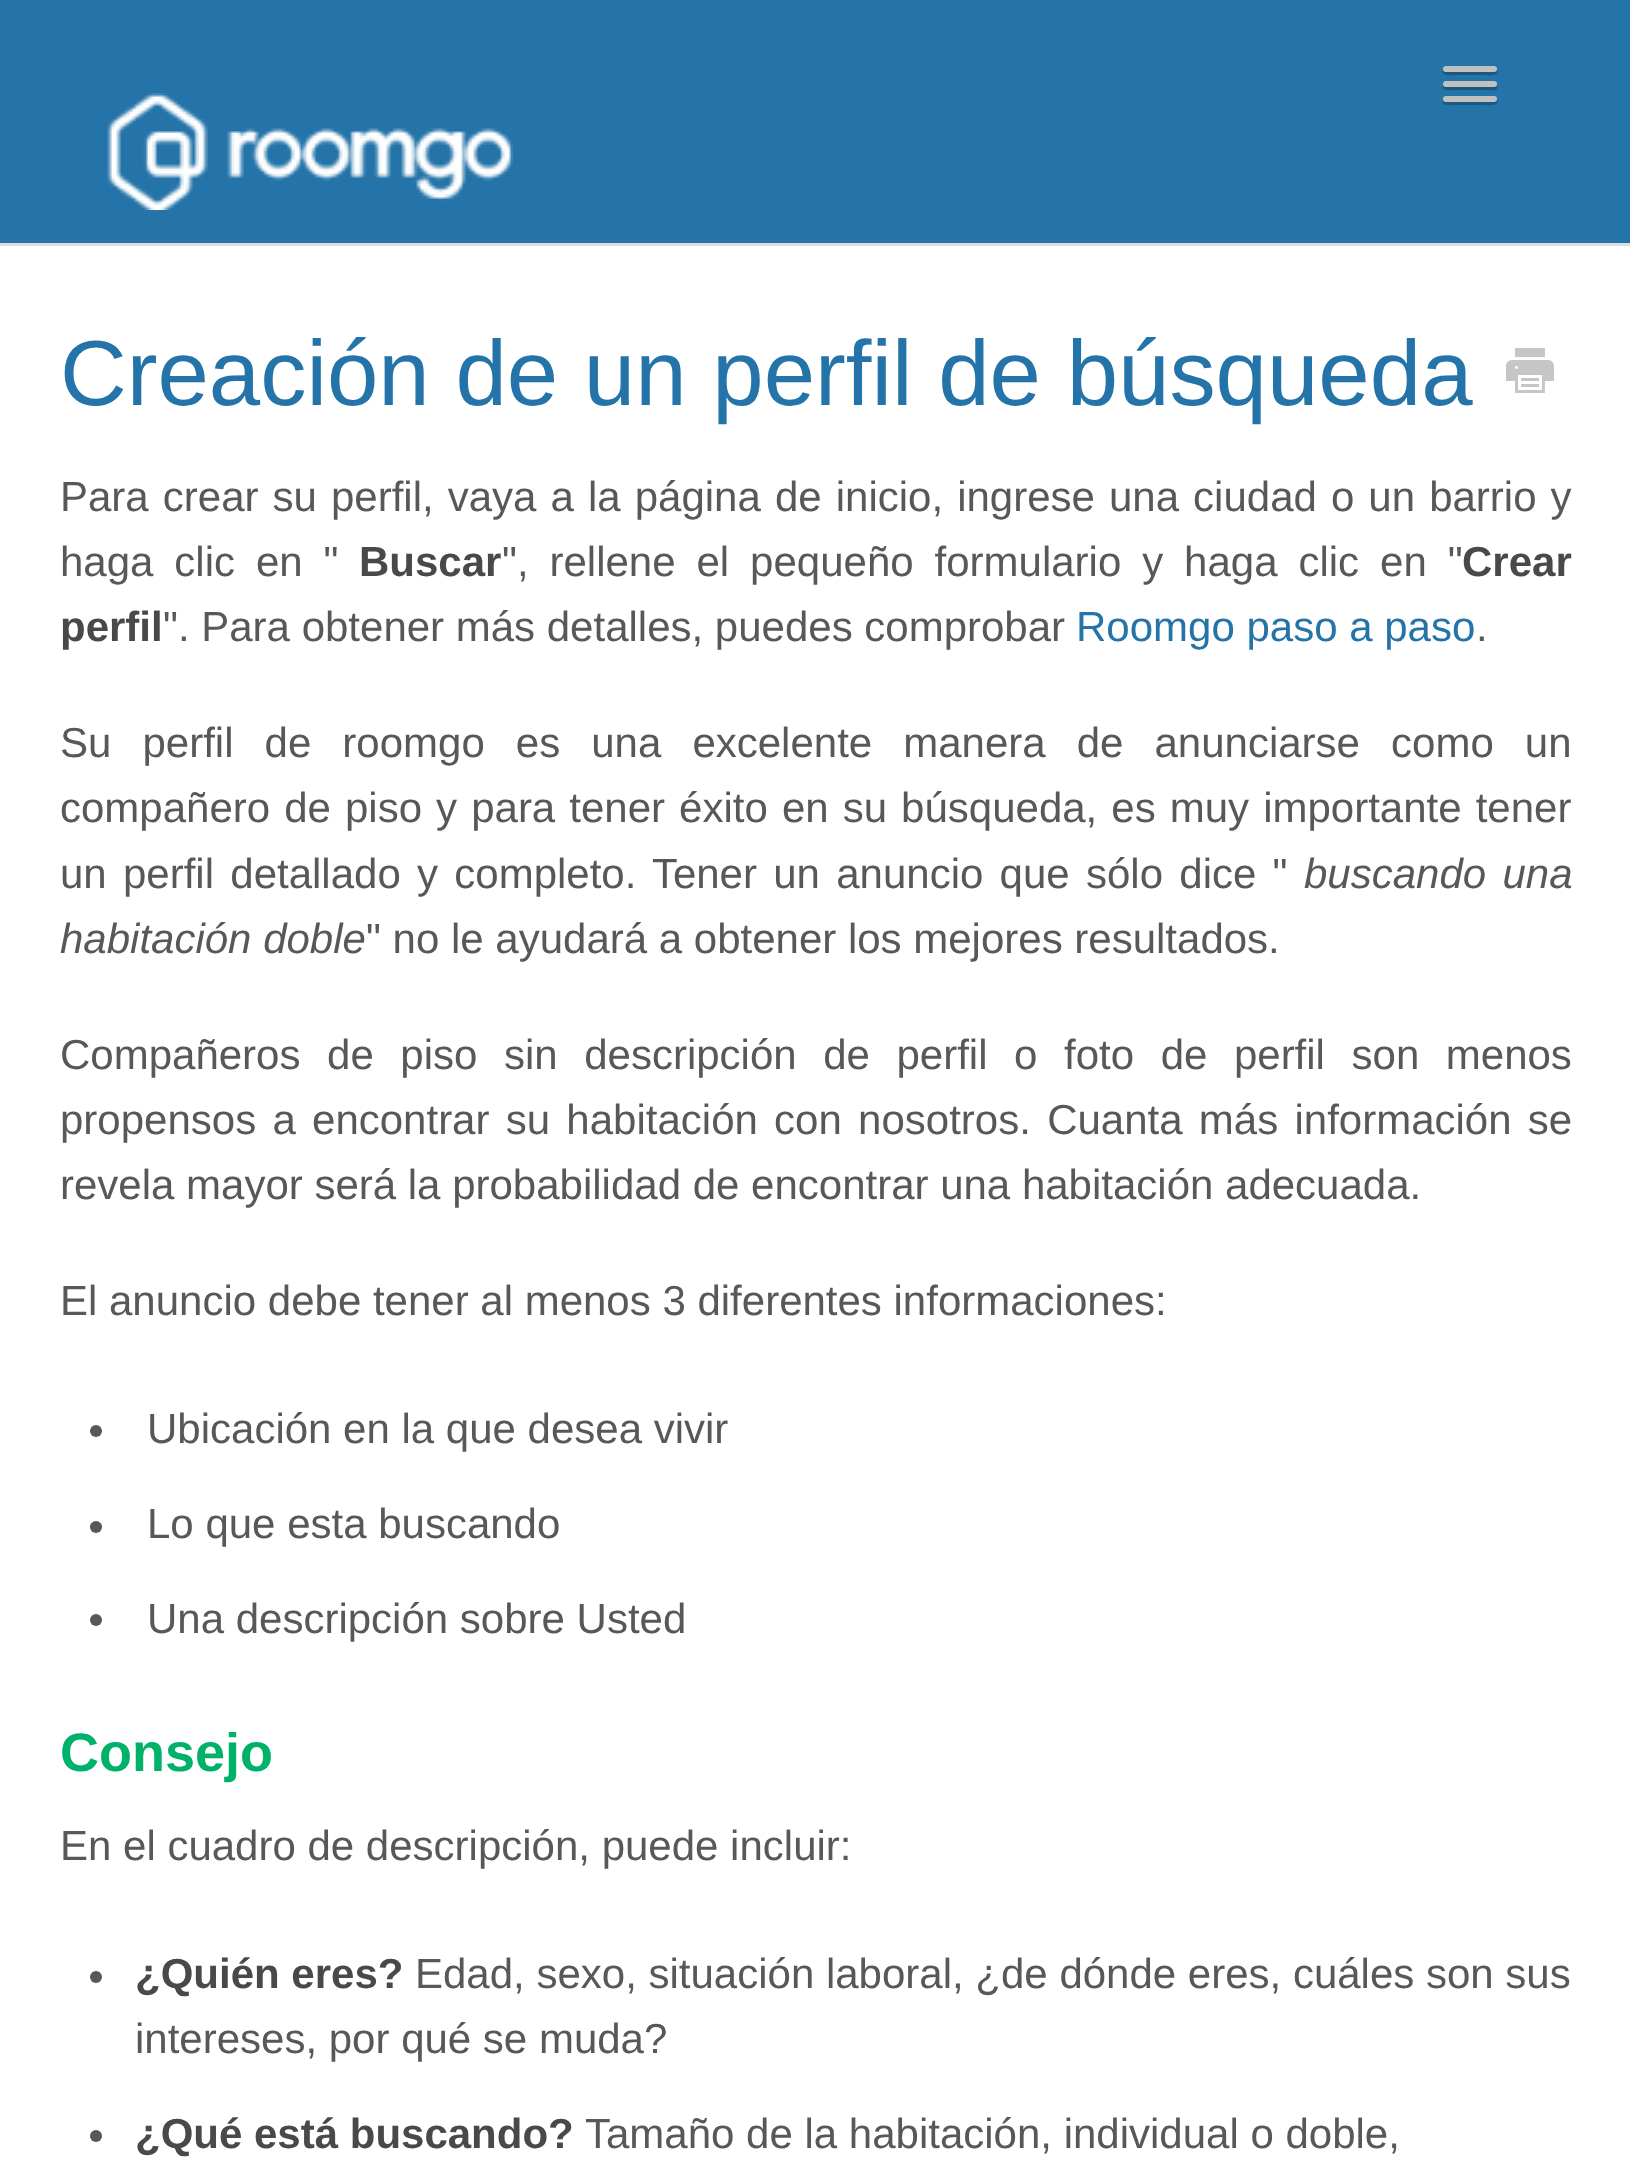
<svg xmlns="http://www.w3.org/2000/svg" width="1630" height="2174">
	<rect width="100%" height="100%" fill="#2574A9" />
	<path d="M1443 70C1440 77 1454 75 1454 75H1486C1486 75 1500 77 1497 70C1496 71 1495 72 1494 72H1446C1445 72 1444 71 1443 70Z" fill="#1C577F" />
	<rect x="1443" y="66" width="54" height="6" rx="3" fill="#C0C0C0" />
	<path d="M1443 86C1440 92 1454 90 1454 90H1486C1486 90 1500 92 1497 86C1496 86 1495 87 1494 87H1446C1445 87 1444 86 1443 86Z" fill="#1C577F" />
	<rect x="1443" y="81" width="54" height="6" rx="3" fill="#C0C0C0" />
	<path d="M1443 100C1440 107 1454 105 1454 105H1486C1486 105 1500 107 1497 100C1496 101 1495 102 1494 102H1446C1445 102 1444 101 1443 100Z" fill="#1C577F" />
	<rect x="1443" y="96" width="54" height="6" rx="3" fill="#C0C0C0" />
	<image x="107" y="93" width="406" height="117" href="assets/img1.png" />
	<rect x="0" y="246" width="1630" height="1928" fill="#FFFFFF" />
	<rect x="0" y="243" width="1630" height="3" fill="#DEDEDE" />
	<text x="60" y="405" font-family="Liberation Sans" font-size="92.4" fill="#2574A9">Creación de un perfil de búsqueda</text>
	<image x="1506" y="348" width="48" height="45" href="assets/img2.png" />
	<g font-family="Liberation Sans" font-size="42" fill="#585858">
		<text x="60" y="511" word-spacing="2.4">Para crear su perfil, vaya a la página de inicio, ingrese una ciudad o un barrio y</text>
		<text x="60" y="576" word-spacing="9.25">haga clic en "</text>
	</g>
	<text x="359" y="576" font-family="Liberation Sans" font-size="42" font-weight="700" fill="#494949">Buscar</text>
	<text x="502" y="576" word-spacing="9.25" font-family="Liberation Sans" font-size="42" fill="#585858">", rellene el pequeño formulario y haga clic en "</text>
	<g font-family="Liberation Sans" font-size="42" font-weight="700" fill="#494949">
		<text x="1462" y="576">Crear</text>
		<text x="60" y="641">perfil</text>
	</g>
	<text x="163" y="641" font-family="Liberation Sans" font-size="42" fill="#585858">". Para obtener más detalles, puedes comprobar</text>
	<text x="1076" y="641" font-family="Liberation Sans" font-size="42" fill="#2574A9">Roomgo paso a paso</text>
	<g font-family="Liberation Sans" font-size="42" fill="#585858">
		<text x="1476" y="641">.</text>
		<text x="60" y="757" word-spacing="19.4">Su perfil de roomgo es una excelente manera de anunciarse como un</text>
		<text x="60" y="822" word-spacing="2.4">compañero de piso y para tener éxito en su búsqueda, es muy importante tener</text>
		<text x="60" y="888" word-spacing="4.6">un perfil detallado y completo. Tener un anuncio que sólo dice "</text>
	</g>
	<g font-family="Liberation Sans" font-size="42" font-style="italic" fill="#585858">
		<text x="1304" y="888" word-spacing="4.6">buscando una</text>
		<text x="60" y="953">habitación doble</text>
	</g>
	<g font-family="Liberation Sans" font-size="42" fill="#585858">
		<text x="366" y="953">" no le ayudará a obtener los mejores resultados.</text>
		<text x="60" y="1069" word-spacing="14.9">Compañeros de piso sin descripción de perfil o foto de perfil son menos</text>
		<text x="60" y="1134" word-spacing="4.6">propensos a encontrar su habitación con nosotros. Cuanta más información se</text>
		<text x="60" y="1199">revela mayor será la probabilidad de encontrar una habitación adecuada.</text>
		<text x="60" y="1315">El anuncio debe tener al menos 3 diferentes informaciones:</text>
	</g>
	<circle cx="96" cy="1431" r="6" fill="#585858" />
	<text x="147" y="1443" font-family="Liberation Sans" font-size="42" fill="#585858">Ubicación en la que desea vivir</text>
	<circle cx="96" cy="1527" r="6" fill="#585858" />
	<text x="147" y="1538" font-family="Liberation Sans" font-size="42" fill="#585858">Lo que esta buscando</text>
	<circle cx="96" cy="1620" r="6" fill="#585858" />
	<text x="147" y="1633" font-family="Liberation Sans" font-size="42" fill="#585858">Una descripción sobre Usted</text>
	<text x="60" y="1771" font-family="Liberation Sans" font-size="54" font-weight="700" fill="#00B16A">Consejo</text>
	<text x="60" y="1860" font-family="Liberation Sans" font-size="42" fill="#585858">En el cuadro de descripción, puede incluir:</text>
	<circle cx="96" cy="1977" r="6" fill="#585858" />
	<text x="135" y="1988" font-family="Liberation Sans" font-size="42" font-weight="700" fill="#494949">¿Quién eres?</text>
	<g font-family="Liberation Sans" font-size="42" fill="#585858">
		<text x="415" y="1988">Edad, sexo, situación laboral, ¿de dónde eres, cuáles son sus</text>
		<text x="135" y="2053">intereses, por qué se muda?</text>
	</g>
	<circle cx="96" cy="2136" r="6" fill="#585858" />
	<text x="135" y="2148" font-family="Liberation Sans" font-size="42" font-weight="700" fill="#494949">¿Qué está buscando?</text>
	<text x="585" y="2148" font-family="Liberation Sans" font-size="42" fill="#585858">Tamaño de la habitación, individual o doble,</text>
</svg>
